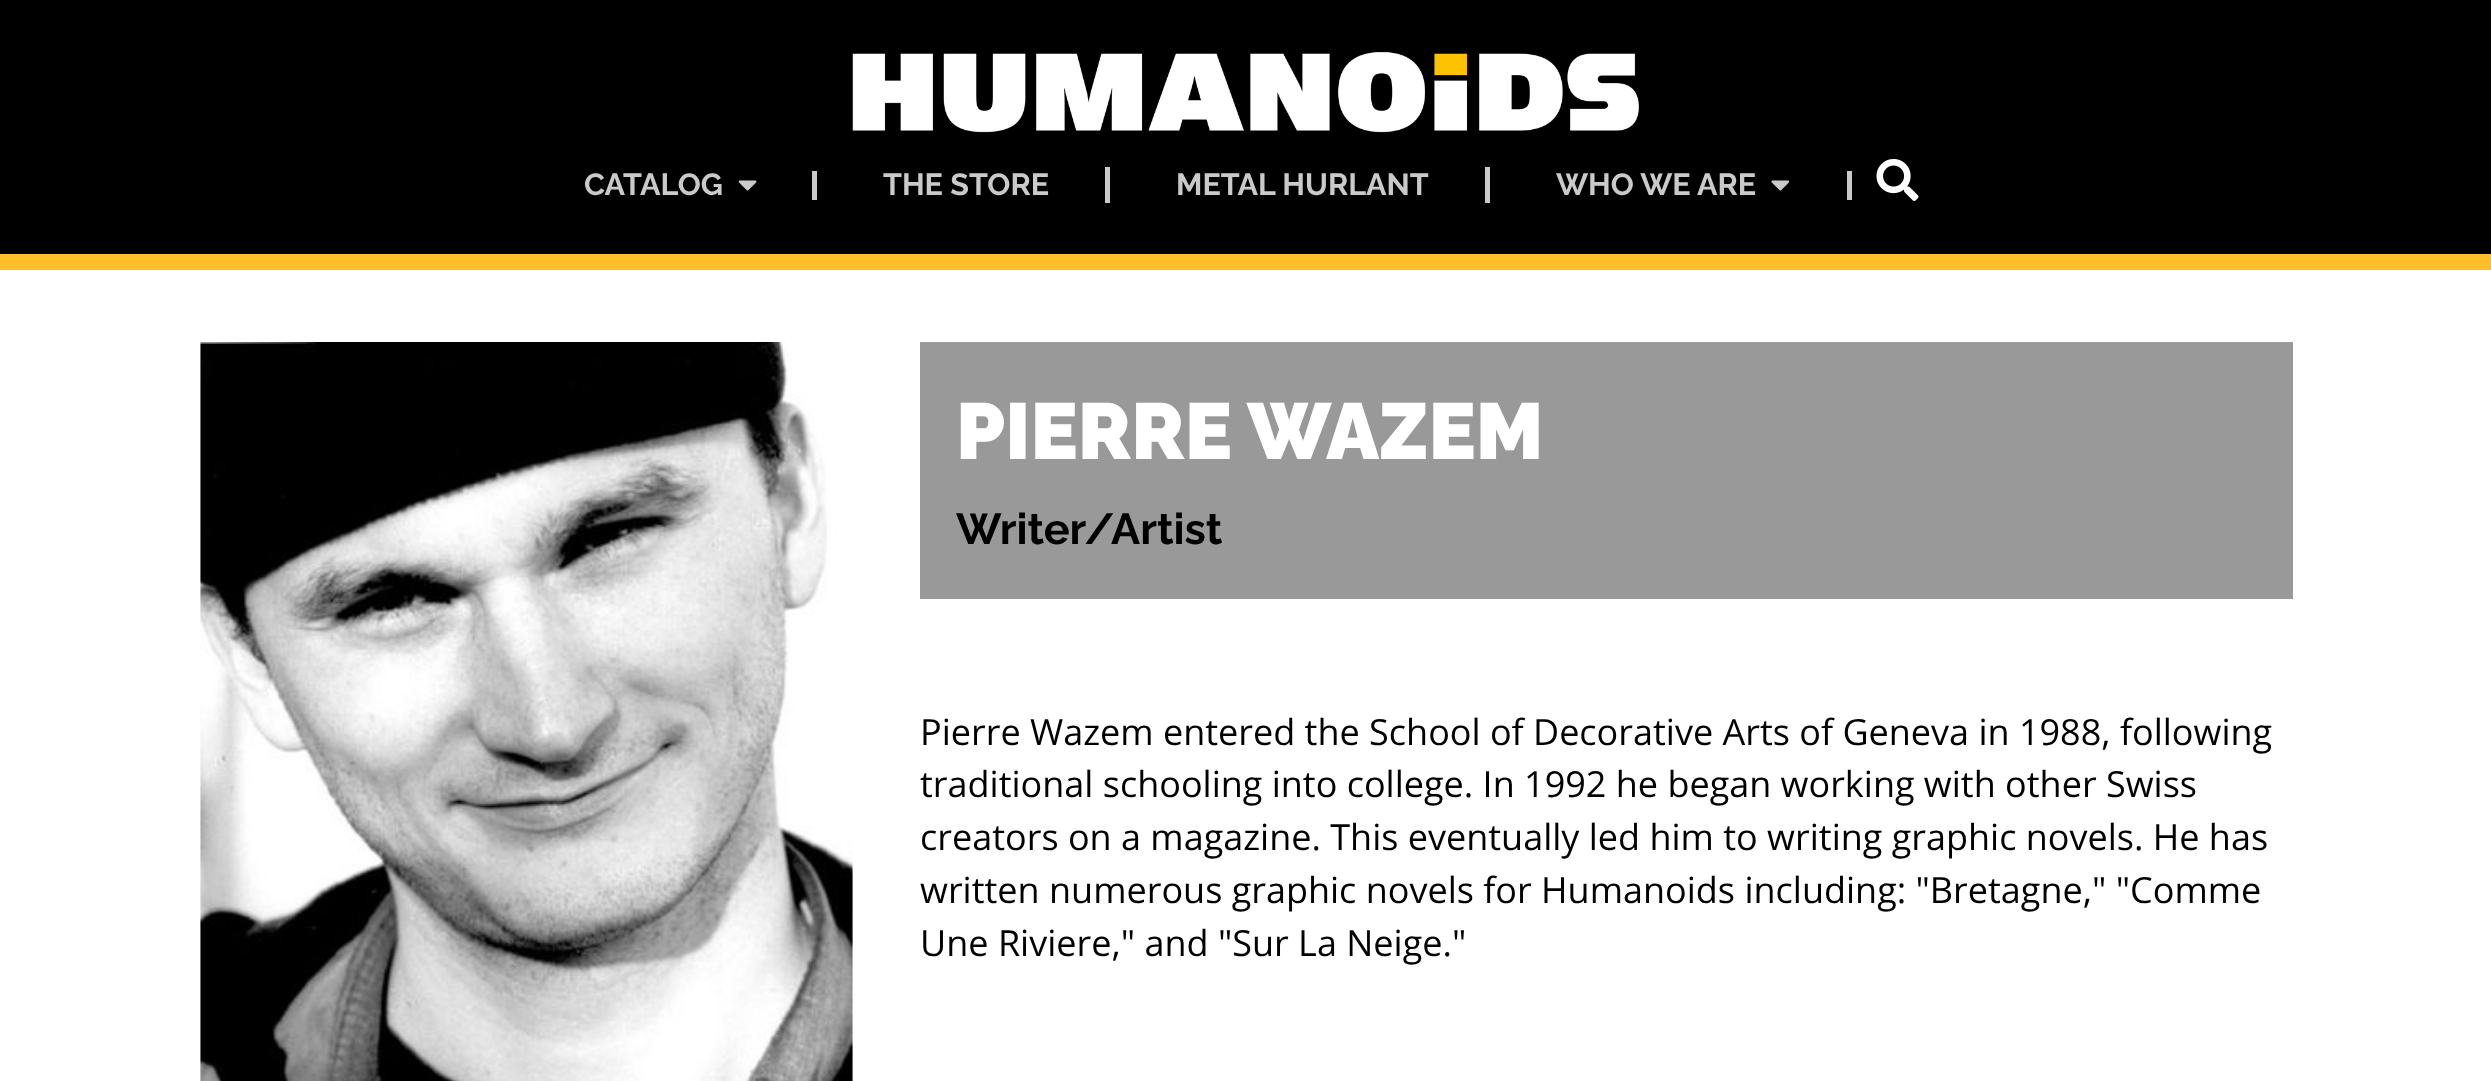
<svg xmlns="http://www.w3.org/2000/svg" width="2491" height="1081">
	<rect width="100%" height="100%" fill="#FFFFFF" />
	<rect x="0" y="0" width="2491" height="254" fill="#000000" />
	<rect x="0" y="254" width="2491" height="16" fill="#FCBF2A" />
	<image x="852" y="52" width="787" height="81" href="assets/img1.png" />
	<rect x="812" y="171" width="5" height="29" fill="#CACACA" />
	<text x="584" y="195" font-family="Raleway" font-size="30.5" font-weight="700" fill="#CACACA">CATALOG</text>
	<image x="738" y="180" width="19" height="11" href="assets/img2.png" />
	<text x="883" y="195" font-family="Raleway" font-size="30.5" font-weight="700" fill="#CACACA">THE STORE</text>
	<rect x="1105" y="167" width="5" height="36" fill="#CACACA" />
	<text x="1176" y="195" font-family="Raleway" font-size="30.5" font-weight="700" fill="#CACACA">METAL HURLANT</text>
	<rect x="1485" y="167" width="5" height="36" fill="#CACACA" />
	<rect x="1847" y="171" width="5" height="29" fill="#CACACA" />
	<text x="1556" y="195" font-family="Raleway" font-size="30.5" font-weight="700" fill="#CACACA">WHO WE ARE</text>
	<image x="1771" y="180" width="19" height="11" href="assets/img3.png" />
	<image x="1876" y="159" width="43" height="42" href="assets/img4.png" />
	<image x="200" y="342" width="653" height="739" href="assets/img5.png" />
	<rect x="920" y="342" width="1373" height="257" fill="#999999" />
	<text x="956" y="459" font-family="Raleway" font-size="79.25" font-weight="900" fill="#FFFFFF">PIERRE WAZEM</text>
	<text x="956" y="544" font-family="Raleway" font-size="43.25" font-weight="700" fill="#000000">Writer/Artist</text>
	<g font-family="Open Sans" font-size="36" fill="#000000">
		<text x="920" y="745">Pierre Wazem entered the School of Decorative Arts of Geneva in 1988, following</text>
		<text x="920" y="797">traditional schooling into college. In 1992 he began working with other Swiss</text>
		<text x="920" y="850">creators on a magazine. This eventually led him to writing graphic novels. He has</text>
		<text x="920" y="903">written numerous graphic novels for Humanoids including: "Bretagne," "Comme</text>
		<text x="920" y="956">Une Riviere," and "Sur La Neige."</text>
	</g>
</svg>
